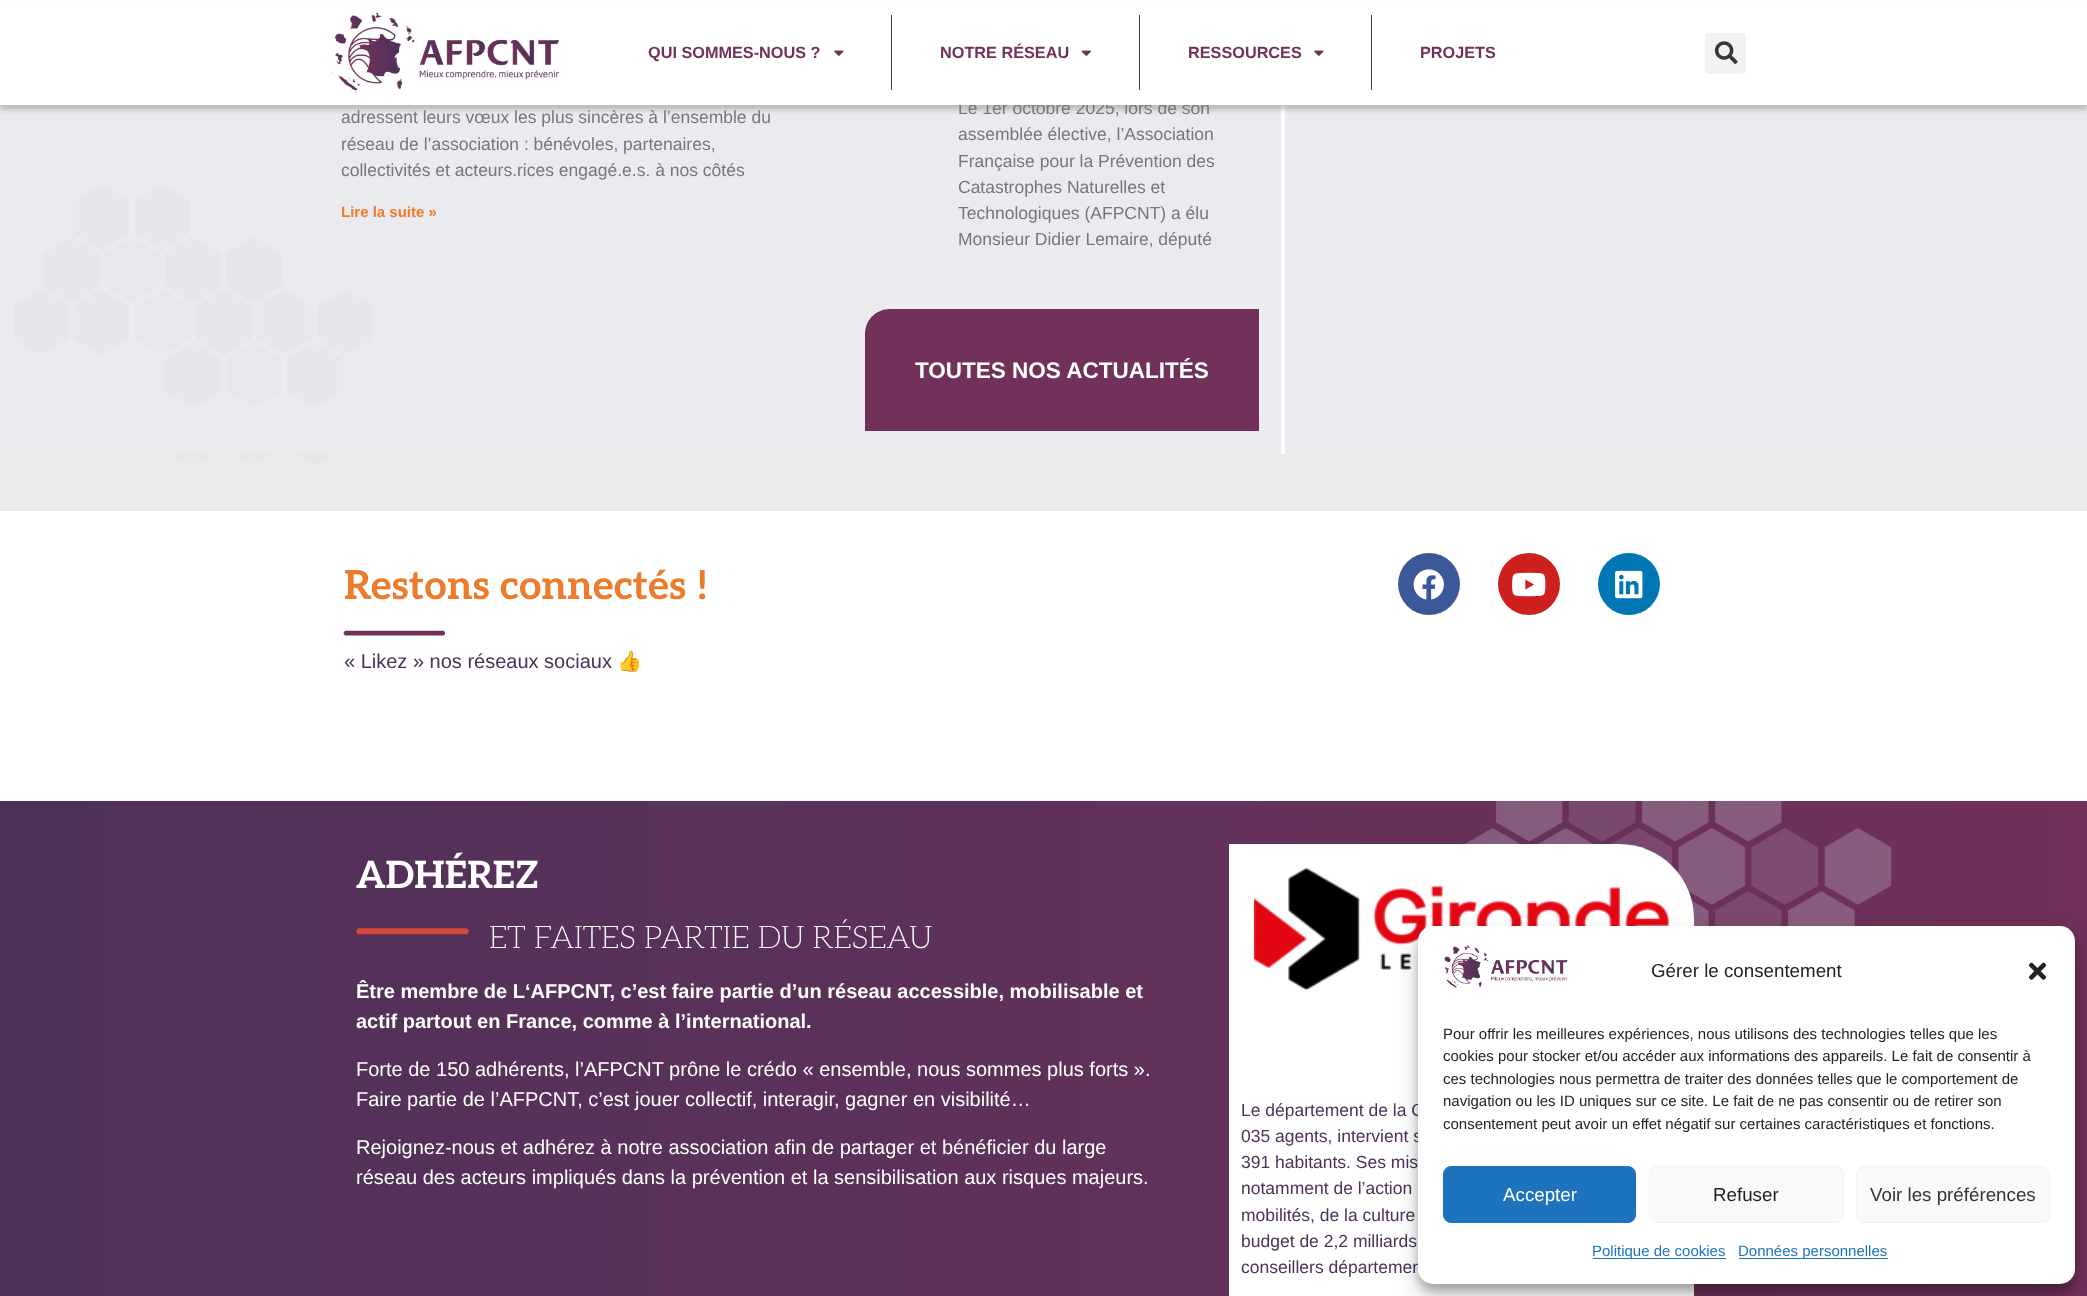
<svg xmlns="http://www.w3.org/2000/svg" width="2087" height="1296">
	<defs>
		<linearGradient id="g1" gradientUnits="userSpaceOnUse" x1="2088" y1="1106" x2="0" y2="1106"><stop offset="0" stop-color="#713159" /><stop offset="1" stop-color="#4D3159" /></linearGradient>
	</defs>
	<rect width="100%" height="100%" fill="#FFFFFF" />
	<rect x="0" y="105" width="2087" height="349" fill="#EBEAEE" />
	<rect x="1281" y="105" width="4" height="349" fill="#FFFFFF" />
	<rect x="0" y="5" width="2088" height="105" fill="#000000" fill-opacity="0.2" filter="blur(2.5px)" />
	<text x="958" y="114" font-family="Liberation Sans" font-size="17.5" fill="#777777">Le 1er octobre 2025, lors de son</text>
	<rect x="0" y="1" width="2087" height="104" fill="#FFFFFF" />
	<image x="331" y="12" width="228" height="81" href="assets/img1.png" />
	<text x="648" y="58" font-family="Liberation Sans" font-size="16.25" font-weight="700" fill="#713159">QUI SOMMES-NOUS ?</text>
	<image x="834" y="50" width="10" height="6" href="assets/img2.png" />
	<rect x="891" y="15" width="1" height="75" fill="#4D3159" />
	<text x="940" y="58" font-family="Liberation Sans" font-size="16.25" font-weight="700" fill="#713159">NOTRE RÉSEAU</text>
	<image x="1081" y="50" width="10" height="6" href="assets/img3.png" />
	<rect x="1139" y="15" width="1" height="75" fill="#4D3159" />
	<text x="1188" y="58" font-family="Liberation Sans" font-size="16.25" font-weight="700" fill="#713159">RESSOURCES</text>
	<image x="1314" y="50" width="10" height="6" href="assets/img2.png" />
	<rect x="1371" y="15" width="1" height="75" fill="#4D3159" />
	<text x="1420" y="58" font-family="Liberation Sans" font-size="16.25" font-weight="700" fill="#713159">PROJETS</text>
	<rect x="1705" y="33" width="41" height="41" rx="4" fill="#F2F2F2" />
	<image x="1714" y="41" width="24" height="23" href="assets/img4.png" />
	<image x="14" y="186" width="358" height="220" href="assets/img5.png" />
	<g font-family="Liberation Sans" font-size="17.5" fill="#777777">
		<text x="341" y="123">adressent leurs vœux les plus sincères à l’ensemble du</text>
		<text x="341" y="150">réseau de l’association : bénévoles, partenaires,</text>
		<text x="341" y="176">collectivités et acteurs.rices engagé.e.s. à nos côtés</text>
	</g>
	<text x="341" y="217" font-family="Liberation Sans" font-size="15" font-weight="700" fill="#EC7B2C">Lire la suite »</text>
	<g font-family="Liberation Sans" font-size="17.5" fill="#777777">
		<text x="958" y="140">assemblée élective, l’Association</text>
		<text x="958" y="167">Française pour la Prévention des</text>
		<text x="958" y="193">Catastrophes Naturelles et</text>
		<text x="958" y="219">Technologiques (AFPCNT) a élu</text>
		<text x="958" y="245">Monsieur Didier Lemaire, député</text>
	</g>
	<path d="M890 309H1259V431H865V334C865 320 876 309 890 309Z" fill="#713159" />
	<text x="915" y="378" font-family="Liberation Sans" font-size="22.5" font-weight="700" fill="#FFFFFF">TOUTES NOS ACTUALITÉS</text>
	<rect x="0" y="454" width="2087" height="57" fill="#EBEAEA" />
	<image x="175" y="453" width="155" height="11" href="assets/img6.png" />
	<text x="344" y="599" font-family="Aleo" font-size="40" font-weight="700" fill="#EC7B2C">Restons connectés !</text>
	<image x="343" y="630" width="102" height="6" href="assets/img7.png" />
	<text x="344" y="668" font-family="Liberation Sans" font-size="20" fill="#4D3159">« Likez » nos réseaux sociaux</text>
	<text x="617" y="668" font-family="Noto Color Emoji" font-size="20" fill="#4D3159">👍</text>
	<circle cx="1429" cy="584" r="31" fill="#3B5998" />
	<image x="1413" y="569" width="31" height="31" href="assets/img8.png" />
	<circle cx="1529" cy="584" r="31" fill="#CD201F" />
	<image x="1512" y="572" width="34" height="25" href="assets/img9.png" />
	<circle cx="1629" cy="584" r="31" fill="#0077B5" />
	<image x="1615" y="570" width="28" height="29" href="assets/img10.png" />
	<rect x="0" y="801" width="2087" height="495" fill="url(#g1)" />
	<text x="356" y="888" font-family="Aleo" font-size="37.5" font-weight="700" fill="#FFFFFF">ADHÉREZ</text>
	<image x="356" y="928" width="113" height="7" href="assets/img11.png" />
	<text x="489" y="948" font-family="Aleo" font-size="31.25" font-weight="200" fill="#FFFFFF">ET FAITES PARTIE DU RÉSEAU</text>
	<g font-family="Liberation Sans" font-size="20" font-weight="700" fill="#FFFFFF">
		<text x="356" y="998">Être membre de L‘AFPCNT, c’est faire partie d’un réseau accessible, mobilisable et</text>
		<text x="356" y="1028">actif partout en France, comme à l’international.</text>
	</g>
	<g font-family="Liberation Sans" font-size="20" fill="#FFFFFF">
		<text x="356" y="1076">Forte de 150 adhérents, l’AFPCNT prône le crédo « ensemble, nous sommes plus forts ».</text>
		<text x="356" y="1106">Faire partie de l’AFPCNT, c’est jouer collectif, interagir, gagner en visibilité…</text>
		<text x="356" y="1154">Rejoignez-nous et adhérez à notre association afin de partager et bénéficier du large</text>
		<text x="356" y="1184">réseau des acteurs impliqués dans la prévention et la sensibilisation aux risques majeurs.</text>
	</g>
	<image x="1465" y="800" width="427" height="126" href="assets/img13.png" />
	<path d="M1229 844H1619C1660.5 844 1694 877.5 1694 919V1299H1229Z" fill="#FFFFFF" />
	<image x="1253" y="868" width="416" height="122" href="assets/img12.png" />
	<g font-family="Liberation Sans" font-size="17.5" fill="#4D3159">
		<text x="1241" y="1116">Le département de la G</text>
		<text x="1241" y="1142">035 agents, intervient s</text>
		<text x="1241" y="1168">391 habitants. Ses mis</text>
		<text x="1241" y="1194">notamment de l’action</text>
		<text x="1241" y="1221">mobilités, de la culture</text>
		<text x="1241" y="1247">budget de 2,2 milliards</text>
		<text x="1241" y="1273">conseillers départemen</text>
	</g>
	<rect x="1418" y="934" width="657" height="357" rx="15" fill="#000000" fill-opacity="0.23" filter="blur(4px)" />
	<rect x="1418" y="939" width="657" height="357" rx="15" fill="#000000" fill-opacity="0.19" filter="blur(12.5px)" />
	<rect x="1418" y="926" width="657" height="358" rx="15" fill="#FFFFFF" />
	<image x="1442" y="945" width="126" height="44" href="assets/img14.png" />
	<text x="1651" y="977" font-family="Liberation Sans" font-size="18.75" fill="#222222">Gérer le consentement</text>
	<image x="2028" y="962" width="19" height="18" href="assets/img15.png" />
	<g font-family="Liberation Sans" font-size="15" fill="#222222">
		<text x="1443" y="1039">Pour offrir les meilleures expériences, nous utilisons des technologies telles que les</text>
		<text x="1443" y="1061">cookies pour stocker et/ou accéder aux informations des appareils. Le fait de consentir à</text>
		<text x="1443" y="1084">ces technologies nous permettra de traiter des données telles que le comportement de</text>
		<text x="1443" y="1106">navigation ou les ID uniques sur ce site. Le fait de ne pas consentir ou de retirer son</text>
		<text x="1443" y="1129">consentement peut avoir un effet négatif sur certaines caractéristiques et fonctions.</text>
	</g>
	<rect x="1443.5" y="1166.5" width="192" height="56" rx="7.5" fill="#1E73BE" stroke="#1E73BE" />
	<text x="1503" y="1201" font-family="Liberation Sans" font-size="18.75" fill="#FFFFFF">Accepter</text>
	<rect x="1649.5" y="1166.5" width="194" height="56" rx="7.5" fill="#F9F9F9" stroke="#F2F2F2" />
	<text x="1713" y="1201" font-family="Liberation Sans" font-size="18.75" fill="#222222">Refuser</text>
	<rect x="1856.5" y="1166.5" width="193" height="56" rx="7.5" fill="#F9F9F9" stroke="#F2F2F2" />
	<text x="1870" y="1201" font-family="Liberation Sans" font-size="18.75" fill="#333333">Voir les préférences</text>
	<rect x="1593" y="1258" width="133" height="1" fill="#1E73BE" />
	<text x="1592" y="1256" font-family="Liberation Sans" font-size="15" fill="#1E73BE">Politique de cookies</text>
	<rect x="1739" y="1258" width="149" height="1" fill="#1E73BE" />
	<text x="1738" y="1256" font-family="Liberation Sans" font-size="15" fill="#1E73BE">Données personnelles</text>
</svg>
